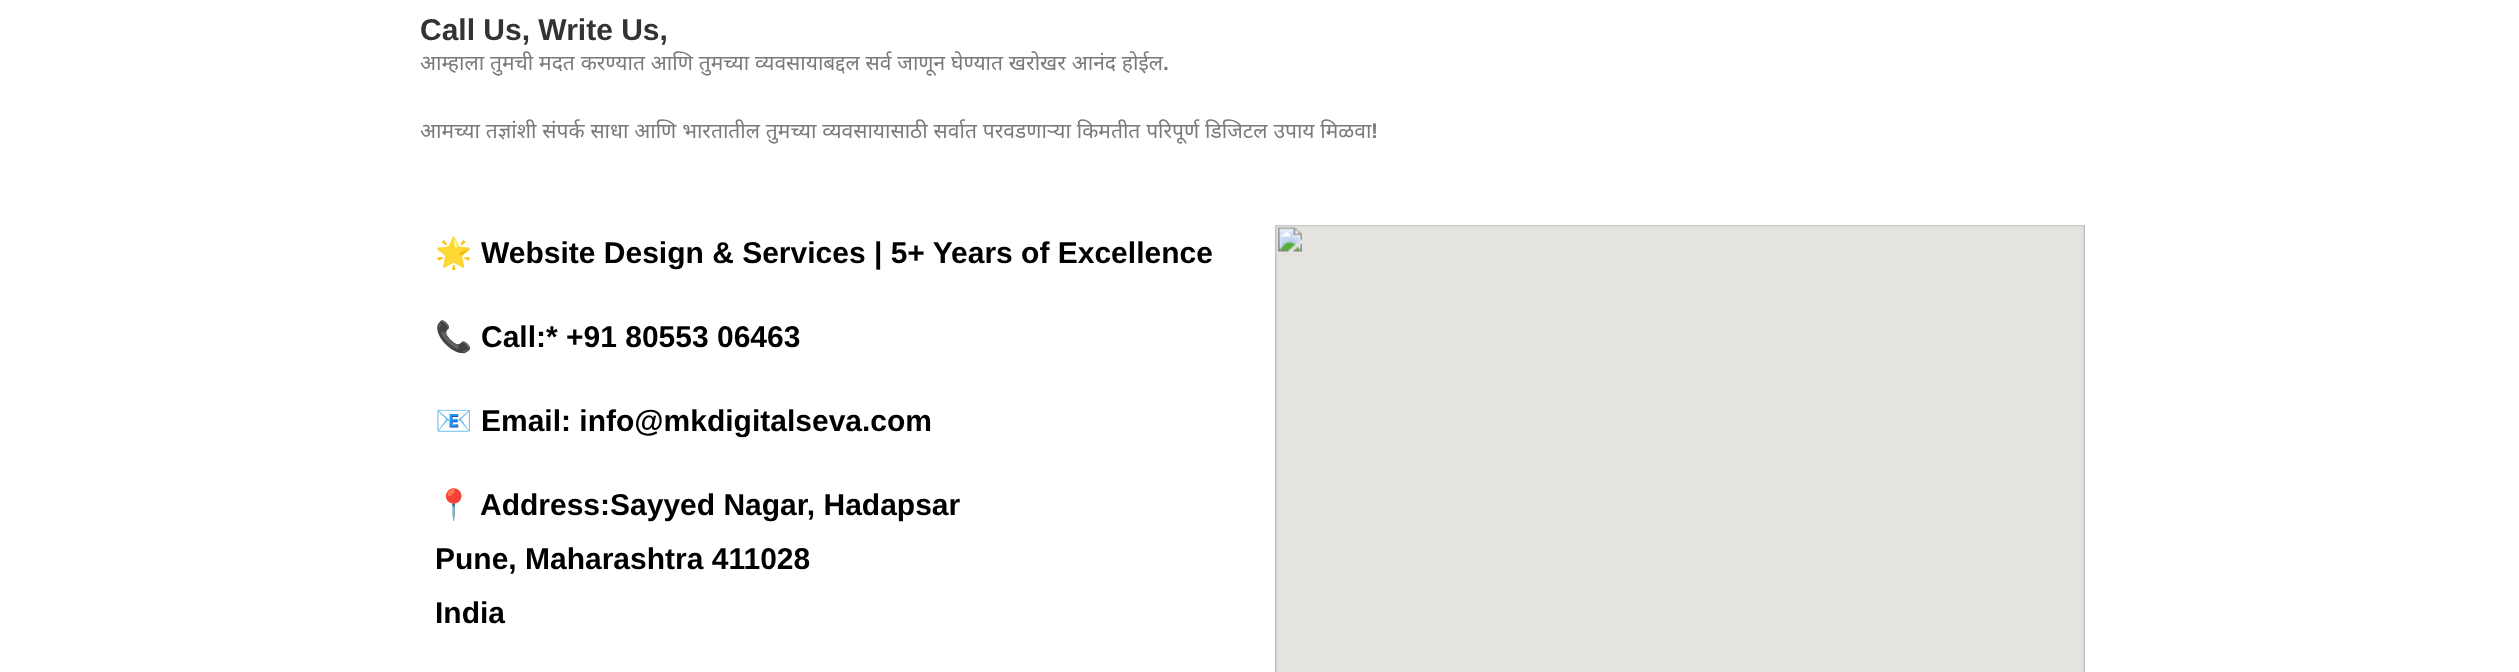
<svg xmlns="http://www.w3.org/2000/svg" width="2519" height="672">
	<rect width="100%" height="100%" fill="#FFFFFF" />
	<text x="420" y="40" font-family="Liberation Sans" font-size="30" font-weight="700" fill="#333333">Call Us, Write Us,</text>
	<text x="420" y="70" word-spacing="0.4" font-family="Noto Sans" font-size="21" fill="#7A7A7A">आम्हाला तुमची मदत करण्यात आणि तुमच्या व्यवसायाबद्दल सर्व जाणून घेण्यात खरोखर आनंद होईल</text>
	<text x="1163" y="70" font-family="Liberation Sans" font-size="21" font-weight="700" fill="#7A7A7A">.</text>
	<text x="420" y="138" word-spacing="0.4" font-family="Noto Sans" font-size="21" fill="#7A7A7A">आमच्या तज्ञांशी संपर्क साधा आणि भारतातील तुमच्या व्यवसायासाठी सर्वात परवडणाऱ्या किमतीत परिपूर्ण डिजिटल उपाय मिळवा</text>
	<text x="1371" y="138" font-family="Liberation Sans" font-size="21" font-weight="700" fill="#7A7A7A">!</text>
	<text x="435" y="263" font-family="Noto Color Emoji" font-size="30" font-weight="700" fill="#000000">🌟</text>
	<text x="481" y="263" font-family="Liberation Sans" font-size="30" font-weight="700" fill="#000000">Website Design &amp; Services | 5+ Years of Excellence</text>
	<text x="435" y="347" font-family="Noto Color Emoji" font-size="30" font-weight="700" fill="#000000">📞</text>
	<text x="481" y="347" font-family="Liberation Sans" font-size="30" font-weight="700" fill="#000000">Call:* +91 80553 06463</text>
	<text x="435" y="431" font-family="Noto Color Emoji" font-size="30" font-weight="700" fill="#000000">📧</text>
	<text x="481" y="431" font-family="Liberation Sans" font-size="30" font-weight="700" fill="#000000">Email: info@mkdigitalseva.com</text>
	<text x="435" y="515" font-family="Noto Color Emoji" font-size="30" font-weight="700" fill="#000000">📍</text>
	<g font-family="Liberation Sans" font-size="30" font-weight="700" fill="#000000">
		<text x="480" y="515">Address:Sayyed Nagar, Hadapsar</text>
		<text x="435" y="569">Pune, Maharashtra 411028</text>
		<text x="435" y="623">India</text>
	</g>
	<image x="1275" y="224" width="810" height="448" href="assets/img1.png" />
</svg>
